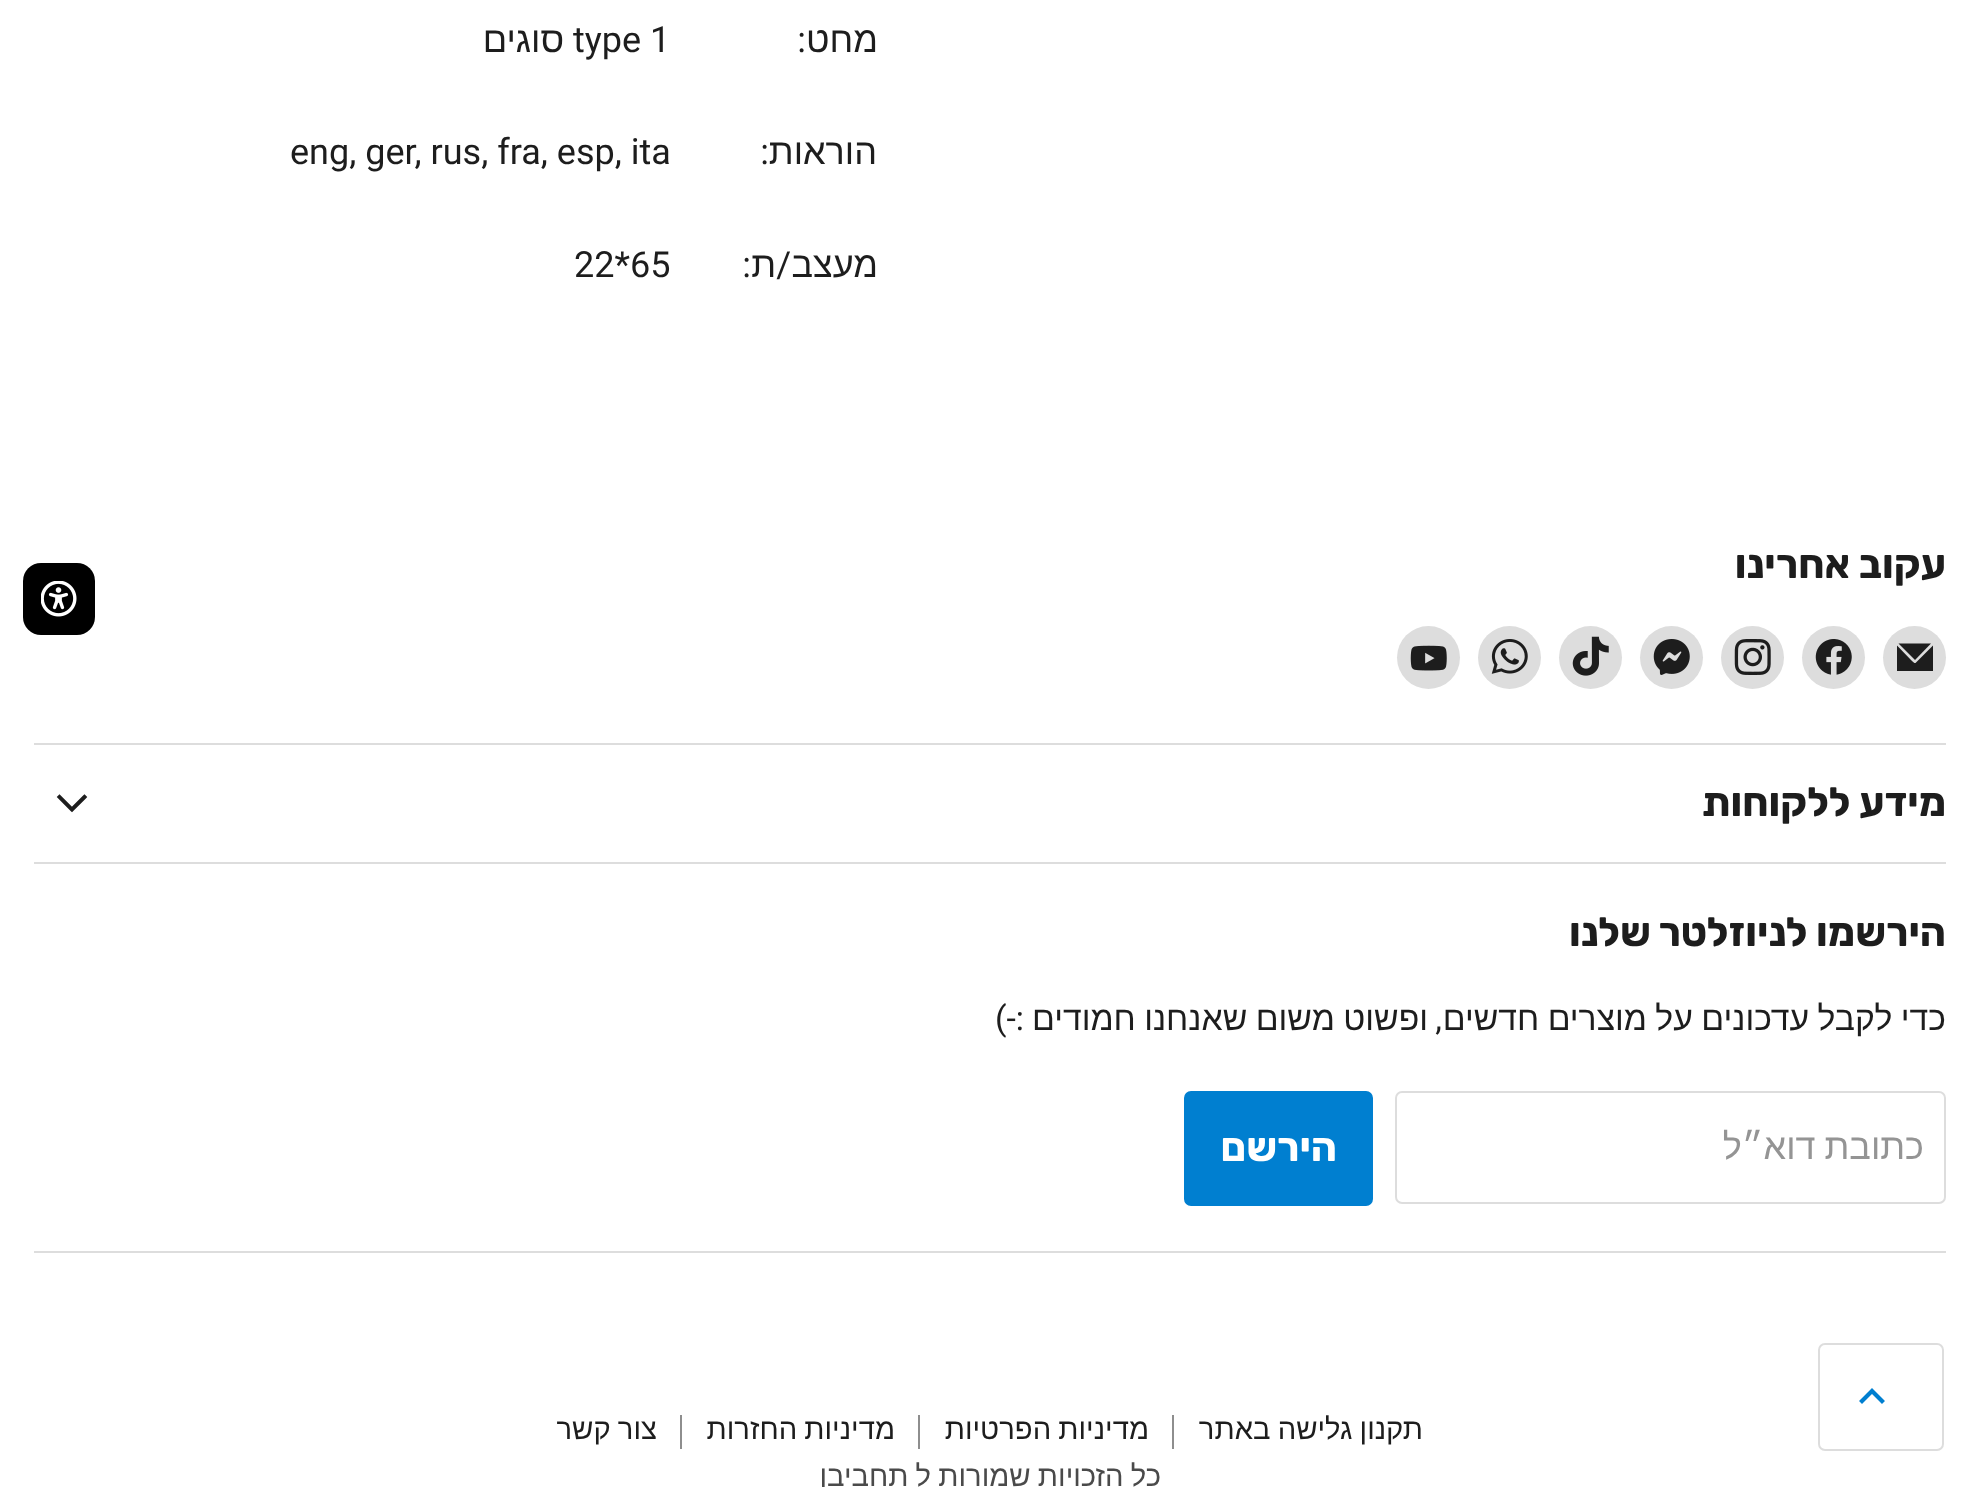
<svg xmlns="http://www.w3.org/2000/svg" width="1978" height="1487">
	<rect width="100%" height="100%" fill="#FFFFFF" />
	<text x="878" y="52" font-family="Liberation Sans" font-size="36" direction="rtl" fill="#1D1D1D">מחט</text>
	<text x="806" y="52" font-family="Roboto" font-size="36" direction="rtl" fill="#1D1D1D">:</text>
	<text x="573" y="52" font-family="Roboto" font-size="36" fill="#1D1D1D">type 1</text>
	<g font-family="Liberation Sans" font-size="36" direction="rtl" fill="#1D1D1D">
		<text x="564" y="52">סוגים</text>
		<text x="877" y="164">הוראות</text>
	</g>
	<text x="769" y="164" font-family="Roboto" font-size="36" direction="rtl" fill="#1D1D1D">:</text>
	<text x="290" y="164" font-family="Roboto" font-size="36" fill="#1D1D1D">eng, ger, rus, fra, esp, ita</text>
	<text x="878" y="277" font-family="Liberation Sans" font-size="36" direction="rtl" fill="#1D1D1D">מעצב</text>
	<text x="791" y="277" font-family="Roboto" font-size="36" direction="rtl" fill="#1D1D1D">/</text>
	<text x="776" y="277" font-family="Liberation Sans" font-size="36" direction="rtl" fill="#1D1D1D">ת</text>
	<text x="751" y="277" font-family="Roboto" font-size="36" direction="rtl" fill="#1D1D1D">:</text>
	<text x="574" y="277" font-family="Roboto" font-size="36" fill="#1D1D1D">22*65</text>
	<rect x="34" y="743" width="1912" height="2" fill="#DDDDDD" />
	<text x="1946" y="578" font-family="Rubik" font-size="40.5" font-weight="300" direction="rtl" fill="#1D1D1D">עקוב אחרינו</text>
	<circle cx="1914.5" cy="657.5" r="31.5" fill="#DDDDDD" />
	<path d="M1916 662.5C1914.5 664.5 1911.5 660 1911 660L1897 645.5V671H1933V645.5Z" fill="#1D1D1D" />
	<path d="M1931 643.5H1898.5L1915 660Z" fill="#1D1D1D" />
	<circle cx="1833.5" cy="657.5" r="31.5" fill="#DDDDDD" />
	<image x="1815" y="639" width="37" height="36" href="assets/img1.png" />
	<circle cx="1752.5" cy="657.5" r="31.5" fill="#DDDDDD" />
	<image x="1734" y="639" width="37" height="36" href="assets/img2.png" />
	<circle cx="1671.5" cy="657.5" r="31.5" fill="#DDDDDD" />
	<image x="1653" y="639" width="37" height="36" href="assets/img3.png" />
	<circle cx="1590.5" cy="657.5" r="31.5" fill="#DDDDDD" />
	<image x="1572" y="636" width="37" height="40" href="assets/img4.png" />
	<circle cx="1509.5" cy="657.5" r="31.5" fill="#DDDDDD" />
	<image x="1491" y="639" width="37" height="35" href="assets/img5.png" />
	<circle cx="1428.5" cy="657.5" r="31.5" fill="#DDDDDD" />
	<image x="1410" y="645" width="37" height="26" href="assets/img6.png" />
	<rect x="34" y="862" width="1912" height="2" fill="#DDDDDD" />
	<text x="1946" y="816" font-family="Rubik" font-size="40.5" font-weight="300" direction="rtl" fill="#1D1D1D">מידע ללקוחות</text>
	<path d="M72 809.5L84.5 797M72 809.5L59.5 797" fill="none" stroke="#1D1D1D" stroke-width="3.9" stroke-linecap="square" />
	<rect x="34" y="1251" width="1912" height="2" fill="#DDDDDD" />
	<text x="1946" y="946" font-family="Rubik" font-size="40.5" font-weight="300" direction="rtl" fill="#1D1D1D">הירשמו לניוזלטר שלנו</text>
	<text x="1946" y="1030" word-spacing="-1" font-family="Liberation Sans" font-size="33.75" direction="rtl" fill="#1D1D1D">כדי לקבל עדכונים על מוצרים חדשים</text>
	<text x="1442" y="1030" font-family="Roboto" font-size="33.75" direction="rtl" fill="#1D1D1D">,</text>
	<text x="1428" y="1030" word-spacing="-1" font-family="Liberation Sans" font-size="33.75" direction="rtl" fill="#1D1D1D">ופשוט משום שאנחנו חמודים</text>
	<text x="1024" y="1030" font-family="Roboto" font-size="33.75" direction="rtl" fill="#1D1D1D">:-)</text>
	<rect x="1396" y="1092" width="549" height="111" rx="6" fill="none" stroke="#DDDDDD" stroke-width="2" />
	<text x="1924" y="1159" word-spacing="-1" font-family="Liberation Sans" font-size="36" direction="rtl" fill="#949494">כתובת דוא״ל</text>
	<rect x="1185" y="1092" width="187" height="113" rx="6" fill="#007FD0" stroke="#007FD0" stroke-width="2" />
	<text x="1337" y="1161" font-family="Rubik" font-size="40.5" font-weight="300" direction="rtl" fill="#FFFFFF">הירשם</text>
	<rect x="1172" y="1415" width="2" height="34" fill="#8E8E8E" />
	<text x="1423" y="1439" word-spacing="-1" font-family="Liberation Sans" font-size="29.25" direction="rtl" fill="#1D1D1D">תקנון גלישה באתר</text>
	<rect x="918" y="1415" width="2" height="34" fill="#8E8E8E" />
	<text x="1149" y="1439" word-spacing="-1" font-family="Liberation Sans" font-size="29.25" direction="rtl" fill="#1D1D1D">מדיניות הפרטיות</text>
	<rect x="680" y="1415" width="2" height="34" fill="#8E8E8E" />
	<g font-family="Liberation Sans" font-size="29.25" direction="rtl" fill="#1D1D1D">
		<text x="895" y="1439" word-spacing="-1">מדיניות החזרות</text>
		<text x="657" y="1439" word-spacing="-1">צור קשר</text>
	</g>
	<text x="1161" y="1486" word-spacing="-1" font-family="Liberation Sans" font-size="29.25" direction="rtl" fill="#4A4A4A">כל הזכויות שמורות ל תחביבן</text>
	<rect x="23" y="563" width="72" height="72" rx="18" fill="#000000" />
	<image x="41" y="581" width="36" height="36" href="assets/img7.png" />
	<rect x="1819" y="1344" width="124" height="106" rx="6" fill="none" stroke="#DDDDDD" stroke-width="2" />
	<path d="M1872 1391L1862 1401M1872 1391L1882 1401" fill="none" stroke="#007FD0" stroke-width="4.2" stroke-linecap="square" />
</svg>
